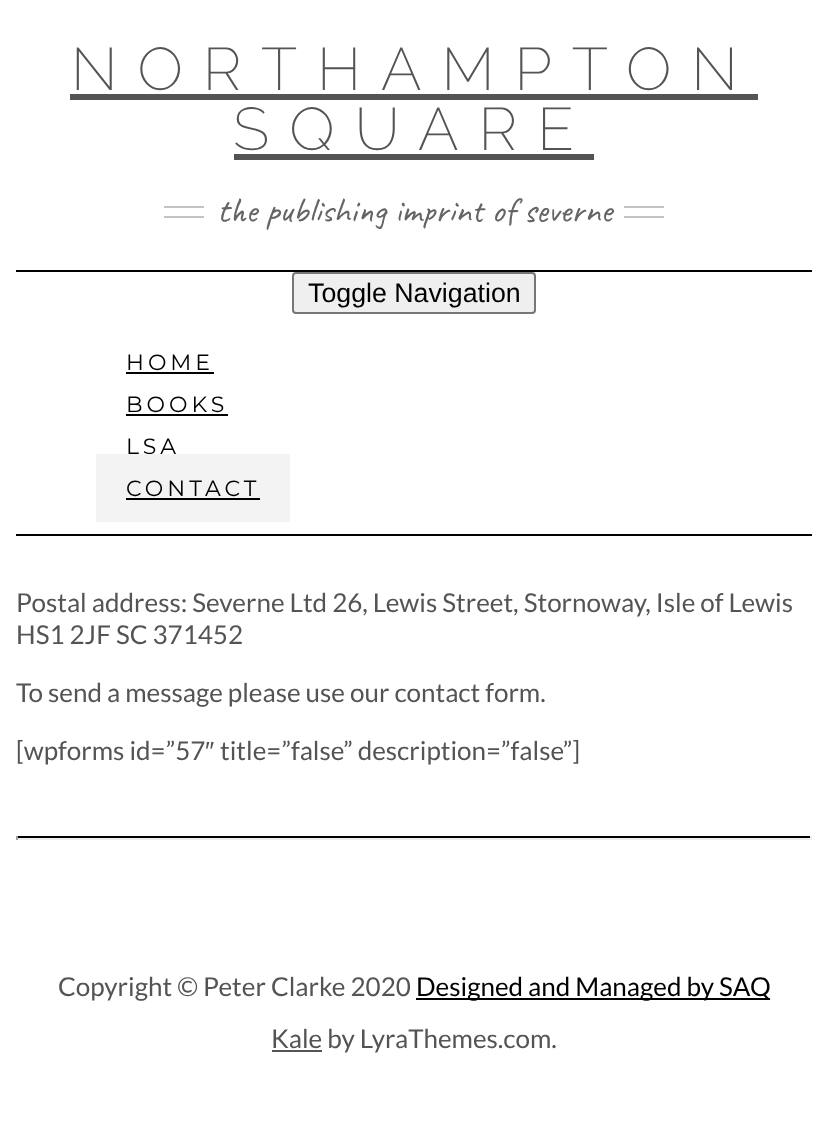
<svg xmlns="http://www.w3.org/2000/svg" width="827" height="1133">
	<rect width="100%" height="100%" fill="#FFFFFF" />
	<text x="71" y="90" font-family="Raleway" font-size="60" font-weight="100" letter-spacing="20" fill="#545454">NORTHAMPTON</text>
	<rect x="70" y="94" width="688" height="6" fill="#545454" />
	<text x="233" y="150" font-family="Raleway" font-size="60" font-weight="100" letter-spacing="20" fill="#545454">SQUARE</text>
	<rect x="234" y="154" width="360" height="6" fill="#545454" />
	<rect x="164" y="206" width="40" height="2" fill="#C4C4C4" />
	<rect x="164" y="216" width="40" height="2" fill="#C4C4C4" />
	<text x="217" y="222" font-family="Caveat" font-size="36" fill="#646464">the publishing imprint of severne</text>
	<rect x="624" y="206" width="40" height="2" fill="#C4C4C4" />
	<rect x="624" y="216" width="40" height="2" fill="#C4C4C4" />
	<rect x="16" y="270" width="796" height="2" fill="#000000" />
	<rect x="16" y="534" width="796" height="2" fill="#000000" />
	<rect x="293" y="273" width="242" height="40" rx="3" fill="#EFEFEF" stroke="#767676" stroke-width="2" />
	<text x="308" y="302" font-family="Liberation Sans" font-size="26.75" fill="#000000">Toggle Navigation</text>
	<text x="126" y="370" font-family="Montserrat" font-size="22" letter-spacing="4" fill="#000000">HOME</text>
	<rect x="126" y="372" width="88" height="2" fill="#000000" />
	<text x="126" y="412" font-family="Montserrat" font-size="22" letter-spacing="4" fill="#000000">BOOKS</text>
	<rect x="126" y="414" width="102" height="2" fill="#000000" />
	<text x="126" y="454" font-family="Montserrat" font-size="22" letter-spacing="4" fill="#000000">LSA</text>
	<rect x="96" y="454" width="194" height="68" fill="#F3F3F3" />
	<text x="126" y="496" font-family="Montserrat" font-size="22" letter-spacing="4" fill="#000000">CONTACT</text>
	<rect x="126" y="498" width="134" height="2" fill="#000000" />
	<g font-family="Lato" font-size="26" fill="#545454">
		<text x="16" y="612">Postal address: Severne Ltd 26, Lewis Street, Stornoway, Isle of Lewis</text>
		<text x="16" y="644">HS1 2JF SC 371452</text>
		<text x="16" y="702">To send a message please use our contact form.</text>
		<text x="16" y="760">[wpforms id=”57</text>
	</g>
	<text x="205" y="760" font-family="Liberation Sans" font-size="26" fill="#545454">″</text>
	<text x="220" y="760" font-family="Lato" font-size="26" fill="#545454">title=”false” description=”false”]</text>
	<rect x="16" y="836" width="796" height="2" fill="#000000" />
	<rect x="810" y="836" width="2" height="4" fill="#EEEEEE" />
	<rect x="16" y="838" width="796" height="2" fill="#EEEEEE" />
	<rect x="16" y="836" width="2" height="4" fill="#9F9F9F" />
	<text x="58" y="996" font-family="Lato" font-size="26" fill="#545454">Copyright © Peter Clarke 2020</text>
	<rect x="416" y="998" width="354" height="2" fill="#000000" />
	<text x="416" y="996" font-family="Lato" font-size="26" fill="#000000">Designed and Managed by SAQ</text>
	<rect x="272" y="1050" width="50" height="2" fill="#545454" />
	<text x="271" y="1048" font-family="Lato" font-size="26" fill="#545454">Kale by LyraThemes.com.</text>
</svg>
